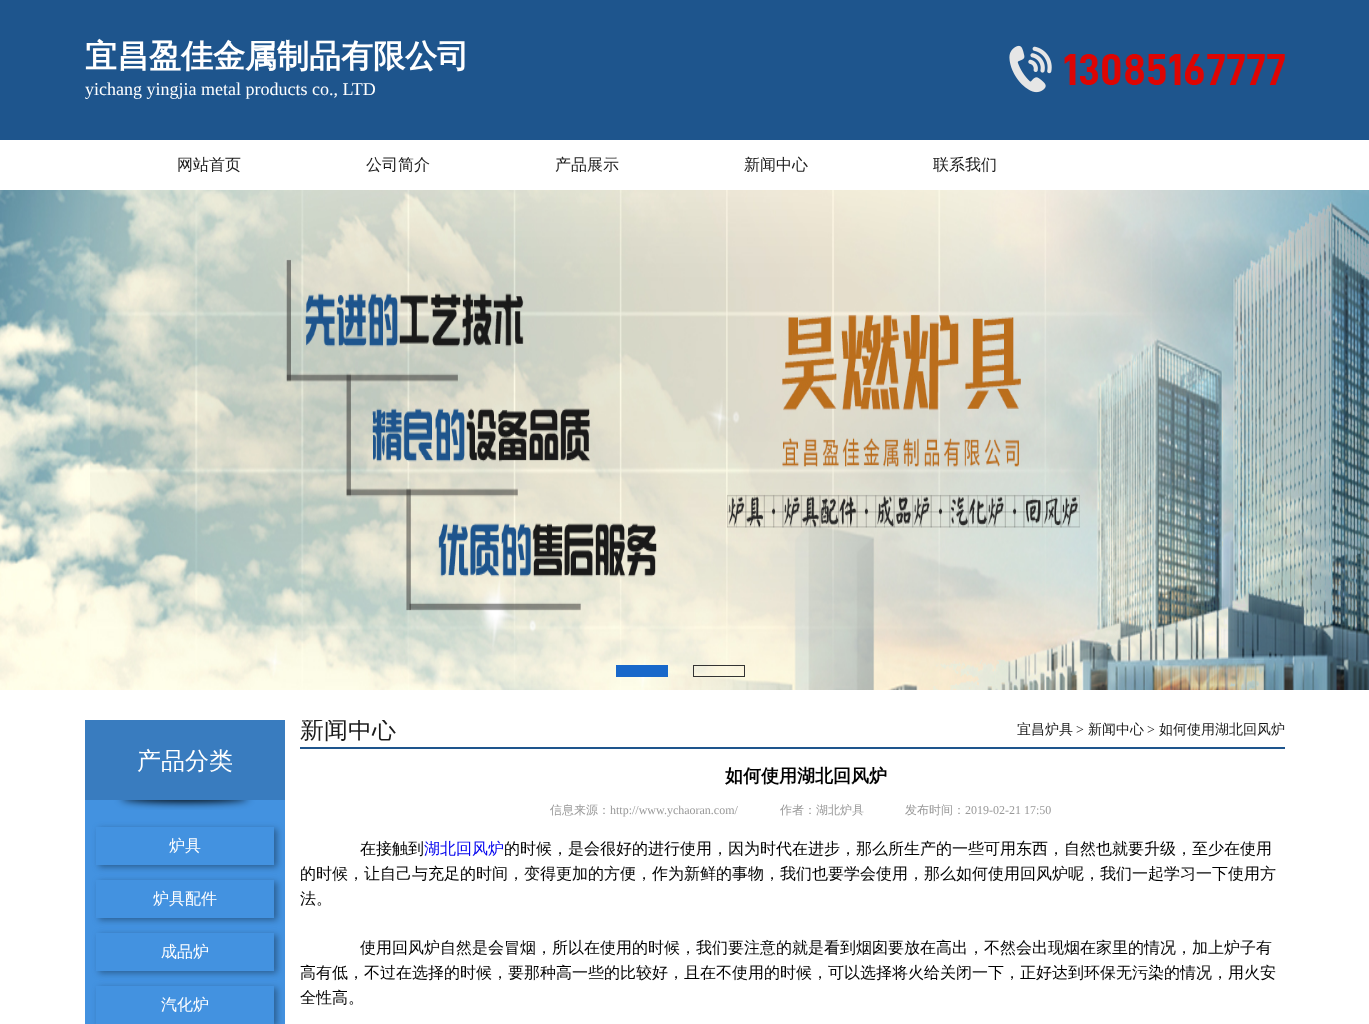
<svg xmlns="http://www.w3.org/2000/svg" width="1369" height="1024">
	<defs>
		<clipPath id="clip1"><path d="M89 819H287V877H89ZM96 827H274V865H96Z" clip-rule="evenodd" /></clipPath>
		<clipPath id="clip2"><path d="M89 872H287V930H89ZM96 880H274V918H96Z" clip-rule="evenodd" /></clipPath>
		<clipPath id="clip3"><path d="M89 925H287V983H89ZM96 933H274V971H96Z" clip-rule="evenodd" /></clipPath>
		<clipPath id="clip4"><path d="M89 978H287V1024H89ZM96 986H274V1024H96Z" clip-rule="evenodd" /></clipPath>
		<clipPath id="clip5"><rect x="300" y="720" width="985" height="27" /></clipPath>
	</defs>
	<rect width="100%" height="100%" fill="#FFFFFF" />
	<rect x="0" y="0" width="1369" height="140" fill="#1E558D" />
	<text x="85" y="67" font-family="WenQuanYi Zen Hei" font-size="32" font-weight="700" fill="#FFFFFF">宜昌盈佳金属制品有限公司</text>
	<text x="85" y="95" font-family="Liberation Serif" font-size="18" fill="#FFFFFF">yichang yingjia metal products co., LTD</text>
	<image x="1009" y="45" width="276" height="48" href="assets/img1.png" />
	<g font-family="WenQuanYi Zen Hei" font-size="16" font-weight="500" fill="#1A1A1A">
		<text x="177" y="170">网站首页</text>
		<text x="366" y="170">公司简介</text>
		<text x="555" y="170">产品展示</text>
		<text x="744" y="170">新闻中心</text>
		<text x="933" y="170">联系我们</text>
	</g>
	<image x="0" y="190" width="1369" height="500" href="assets/img2.png" />
	<rect x="616" y="665" width="52" height="12" fill="#1868CA" />
	<rect x="693.5" y="665.5" width="51" height="11" fill="none" stroke="#333333" />
	<rect x="85" y="800" width="200" height="224" fill="#4392E0" />
	<image x="85" y="720" width="200" height="90" href="assets/img3.png" />
	<text x="137" y="769" font-family="WenQuanYi Zen Hei" font-size="24" font-weight="500" fill="#FFFFFF">产品分类</text>
	<g clip-path="url(#clip1)">
		<rect x="99" y="829" width="178" height="38" fill="#2B5E90" filter="blur(3px)" />
	</g>
	<text x="169" y="851" font-family="WenQuanYi Zen Hei" font-size="16" font-weight="500" fill="#FFFFFF">炉具</text>
	<g clip-path="url(#clip2)">
		<rect x="99" y="882" width="178" height="38" fill="#2B5E90" filter="blur(3px)" />
	</g>
	<text x="153" y="904" font-family="WenQuanYi Zen Hei" font-size="16" font-weight="500" fill="#FFFFFF">炉具配件</text>
	<g clip-path="url(#clip3)">
		<rect x="99" y="935" width="178" height="38" fill="#2B5E90" filter="blur(3px)" />
	</g>
	<text x="161" y="957" font-family="WenQuanYi Zen Hei" font-size="16" font-weight="500" fill="#FFFFFF">成品炉</text>
	<g clip-path="url(#clip4)">
		<rect x="99" y="988" width="178" height="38" fill="#2B5E90" filter="blur(3px)" />
	</g>
	<text x="161" y="1010" font-family="WenQuanYi Zen Hei" font-size="16" font-weight="500" fill="#FFFFFF">汽化炉</text>
	<rect x="300" y="747" width="985" height="2" fill="#1E558D" />
	<g clip-path="url(#clip5)">
		<text x="300" y="738" font-family="WenQuanYi Zen Hei" font-size="24" font-weight="500" fill="#1A1A1A">新闻中心</text>
	</g>
	<text x="1017" y="734" font-family="WenQuanYi Zen Hei" font-size="14" font-weight="500" fill="#1A1A1A">宜昌炉具</text>
	<text x="1076" y="734" font-family="Liberation Serif" font-size="14" fill="#1A1A1A">&gt;</text>
	<text x="1088" y="734" font-family="WenQuanYi Zen Hei" font-size="14" font-weight="500" fill="#1A1A1A">新闻中心</text>
	<text x="1147" y="734" font-family="Liberation Serif" font-size="14" fill="#1A1A1A">&gt;</text>
	<text x="1159" y="734" font-family="WenQuanYi Zen Hei" font-size="14" font-weight="500" fill="#1A1A1A">如何使用湖北回风炉</text>
	<text x="725" y="782" font-family="WenQuanYi Zen Hei" font-size="18" font-weight="700" fill="#000000">如何使用湖北回风炉</text>
	<text x="550" y="814" font-family="WenQuanYi Zen Hei" font-size="12" font-weight="500" fill="#999999">信息来源：</text>
	<text x="610" y="814" font-family="Liberation Serif" font-size="12" fill="#999999">http://www.ychaoran.com/</text>
	<g font-family="WenQuanYi Zen Hei" font-size="12" font-weight="500" fill="#999999">
		<text x="780" y="814">作者：湖北炉具</text>
		<text x="905" y="814">发布时间：</text>
	</g>
	<text x="965" y="814" font-family="Liberation Serif" font-size="12" fill="#999999">2019-02-21 17:50</text>
	<text x="360" y="854" font-family="WenQuanYi Zen Hei" font-size="16" font-weight="500" fill="#000000">在接触到</text>
	<text x="424" y="854" font-family="WenQuanYi Zen Hei" font-size="16" font-weight="500" fill="#0000EE">湖北回风炉</text>
	<g font-family="WenQuanYi Zen Hei" font-size="16" font-weight="500" fill="#000000">
		<text x="504" y="854">的时候，是会很好的进行使用，因为时代在进步，那么所生产的一些可用东西，自然也就要升级，至少在使用</text>
		<text x="300" y="879">的时候，让自己与充足的时间，变得更加的方便，作为新鲜的事物，我们也要学会使用，那么如何使用回风炉呢，我们一起学习一下使用方</text>
		<text x="300" y="904">法。</text>
		<text x="360" y="953">使用回风炉自然是会冒烟，所以在使用的时候，我们要注意的就是看到烟囱要放在高出，不然会出现烟在家里的情况，加上炉子有</text>
		<text x="300" y="978">高有低，不过在选择的时候，要那种高一些的比较好，且在不使用的时候，可以选择将火给关闭一下，正好达到环保无污染的情况，用火安</text>
		<text x="300" y="1003">全性高。</text>
	</g>
</svg>
